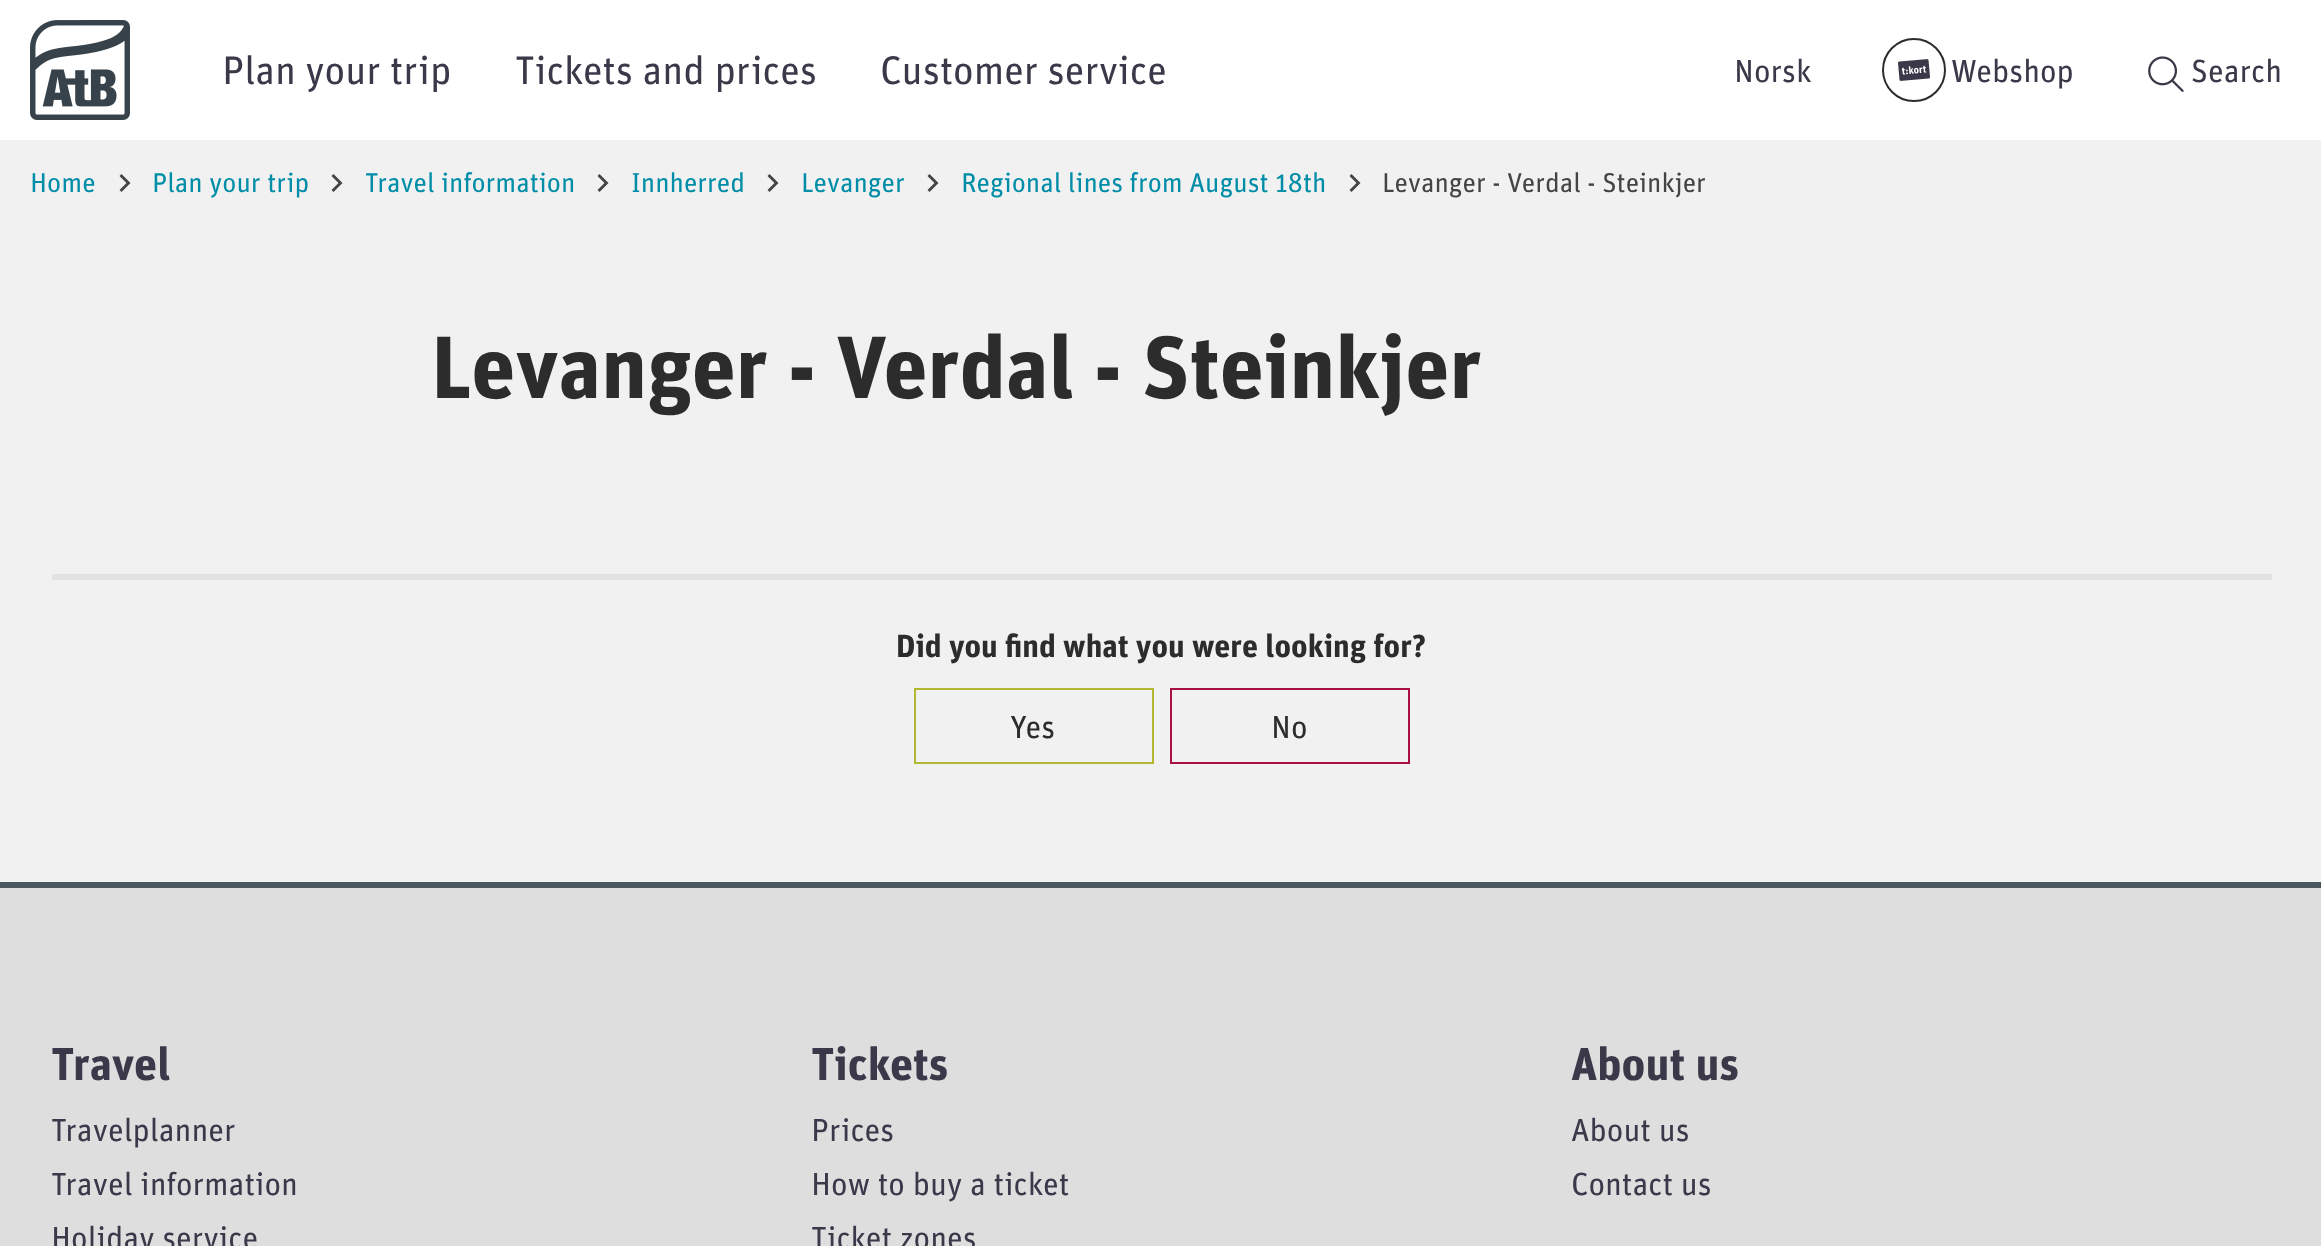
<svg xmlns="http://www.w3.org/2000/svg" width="2321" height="1246">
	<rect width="100%" height="100%" fill="#F1F1F1" />
	<rect x="0" y="0" width="2321" height="140" fill="#FFFFFF" />
	<image x="30" y="20" width="100" height="100" href="assets/img1.png" />
	<g font-family="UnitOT" font-size="39.75" fill="#3B3849">
		<text x="222" y="84">Plan your trip</text>
		<text x="515" y="84">Tickets and prices</text>
		<text x="880" y="84">Customer service</text>
	</g>
	<text x="1734" y="82" font-family="UnitOT" font-size="32" fill="#3B3849">Norsk</text>
	<circle cx="1914" cy="70" r="31" fill="none" stroke="#2C2C2D" stroke-width="2" />
	<image x="1898" y="59" width="32" height="22" href="assets/img2.png" />
	<text x="1951" y="82" font-family="UnitOT" font-size="32" fill="#3B3849">Webshop</text>
	<image x="2148" y="56" width="36" height="36" href="assets/img3.png" />
	<text x="2191" y="82" font-family="UnitOT" font-size="32" fill="#3B3849">Search</text>
	<text x="30" y="192" font-family="UnitOT" font-size="27.25" fill="#008DA8">Home</text>
	<path d="M121.5 174L119.5 176L126.5 183L119.5 190L121.5 192L130.5 183" fill="#444444" />
	<text x="152" y="192" font-family="UnitOT" font-size="27.25" fill="#008DA8">Plan your trip</text>
	<path d="M333.5 174L331.5 176L338.5 183L331.5 190L333.5 192L342.5 183" fill="#444444" />
	<text x="365" y="192" font-family="UnitOT" font-size="27.25" fill="#008DA8">Travel information</text>
	<path d="M599.5 174L597.5 176L604.5 183L597.5 190L599.5 192L608.5 183" fill="#444444" />
	<text x="631" y="192" font-family="UnitOT" font-size="27.25" fill="#008DA8">Innherred</text>
	<path d="M769.5 174L767.5 176L774.5 183L767.5 190L769.5 192L778.5 183" fill="#444444" />
	<text x="801" y="192" font-family="UnitOT" font-size="27.25" fill="#008DA8">Levanger</text>
	<path d="M929.5 174L927.5 176L934.5 183L927.5 190L929.5 192L938.5 183" fill="#444444" />
	<text x="961" y="192" font-family="UnitOT" font-size="27.25" fill="#008DA8">Regional lines from August 18th</text>
	<path d="M1351.5 174L1349.5 176L1356.5 183L1349.5 190L1351.5 192L1360.5 183" fill="#444444" />
	<text x="1382" y="192" font-family="UnitOT" font-size="27.25" fill="#444444">Levanger - Verdal - Steinkjer</text>
	<text x="431" y="398" font-family="UnitOT" font-size="88" font-weight="700" fill="#2C2C2D">Levanger - Verdal - Steinkjer</text>
	<rect x="52" y="574" width="2220" height="6" fill="#E2E2E2" />
	<text x="896" y="657" font-family="UnitOT" font-size="32" font-weight="700" fill="#2C2C2D">Did you find what you were looking for?</text>
	<rect x="915" y="689" width="238" height="74" fill="none" stroke="#B2B931" stroke-width="2" />
	<text x="1010" y="738" font-family="UnitOT" font-size="32" fill="#2C2C2D">Yes</text>
	<rect x="1171" y="689" width="238" height="74" fill="none" stroke="#A51140" stroke-width="2" />
	<text x="1271" y="738" font-family="UnitOT" font-size="32" fill="#2C2C2D">No</text>
	<rect x="0" y="888" width="2321" height="358" fill="#DEDEDE" />
	<rect x="0" y="882" width="2321" height="6" fill="#4B575F" />
	<text x="51" y="1080" font-family="UnitOT" font-size="46" font-weight="700" fill="#3B3849">Travel</text>
	<g font-family="UnitOT" font-size="32" fill="#3B3849">
		<text x="51" y="1141">Travelplanner</text>
		<text x="51" y="1195">Travel information</text>
		<text x="51" y="1249">Holiday service</text>
	</g>
	<text x="811" y="1080" font-family="UnitOT" font-size="46" font-weight="700" fill="#3B3849">Tickets</text>
	<g font-family="UnitOT" font-size="32" fill="#3B3849">
		<text x="811" y="1141">Prices</text>
		<text x="811" y="1195">How to buy a ticket</text>
		<text x="811" y="1249">Ticket zones</text>
	</g>
	<text x="1571" y="1080" font-family="UnitOT" font-size="46" font-weight="700" fill="#3B3849">About us</text>
	<g font-family="UnitOT" font-size="32" fill="#3B3849">
		<text x="1571" y="1141">About us</text>
		<text x="1571" y="1195">Contact us</text>
	</g>
</svg>
